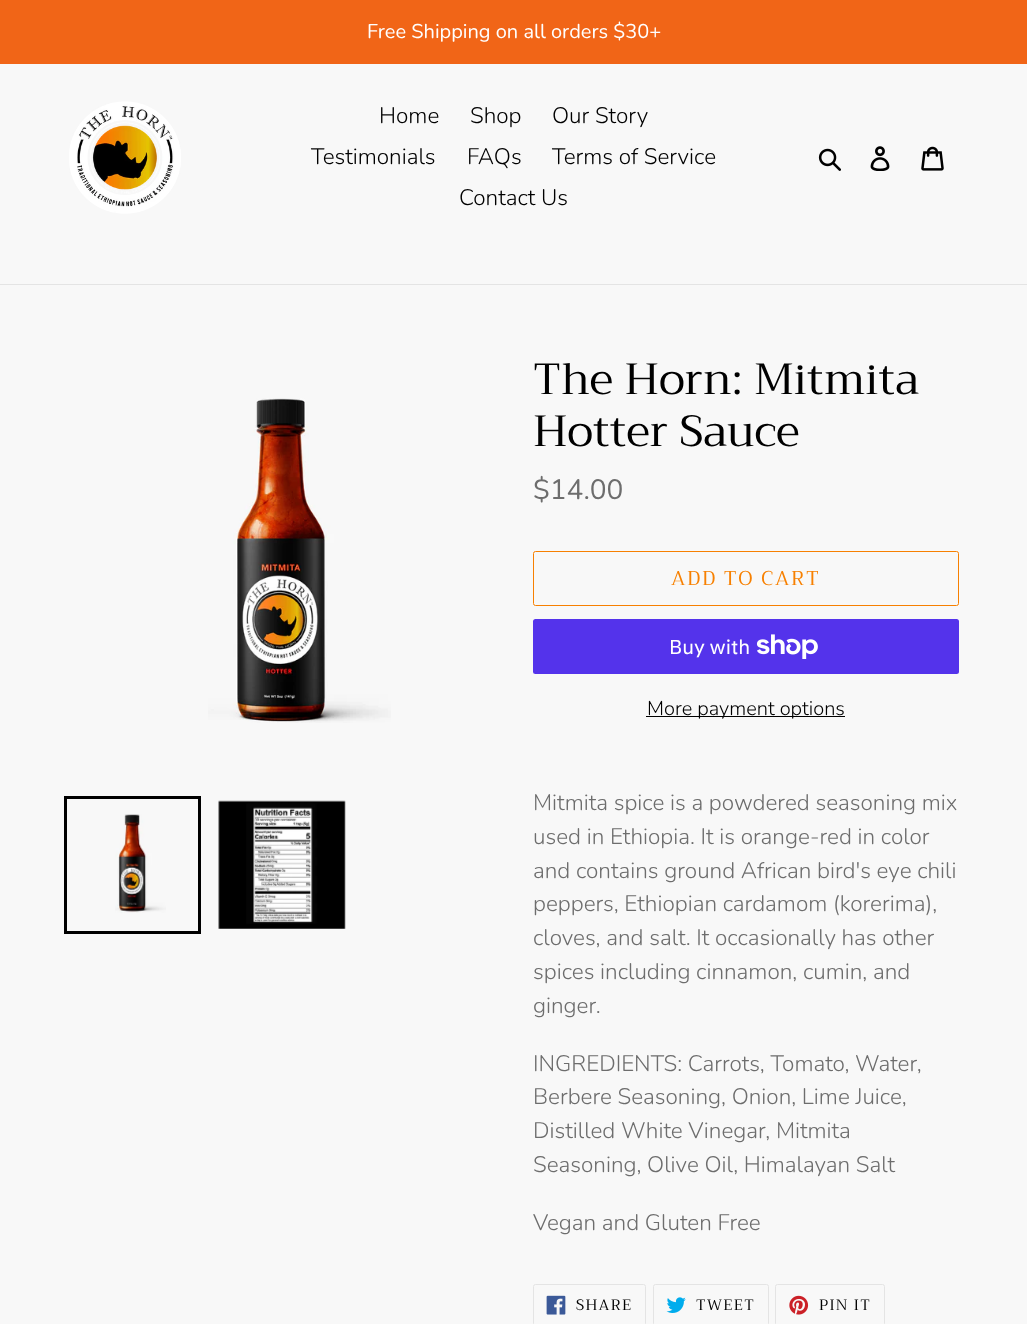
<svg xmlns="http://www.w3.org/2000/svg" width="1027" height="1324">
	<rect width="100%" height="100%" fill="#F8F8F8" />
	<rect x="0" y="0" width="1027" height="64" fill="#F16517" />
	<text x="367" y="38" font-family="Nunito" font-size="20" fill="#FFFFFF">Free Shipping on all orders $30+</text>
	<rect x="0" y="284" width="1027" height="1" fill="#E4E4E4" />
	<image x="69" y="101" width="112" height="113" href="assets/img1.png" />
	<g font-family="Nunito" font-size="22.5" font-weight="300" fill="#000000">
		<text x="379" y="123">Home</text>
		<text x="470" y="123">Shop</text>
		<text x="552" y="123">Our Story</text>
		<text x="311" y="164">Testimonials</text>
		<text x="467" y="164">FAQs</text>
		<text x="552" y="164">Terms of Service</text>
		<text x="459" y="205">Contact Us</text>
	</g>
	<image x="818" y="148" width="23" height="23" href="assets/img2.png" />
	<image x="870" y="146" width="20" height="25" href="assets/img3.png" />
	<image x="921" y="146" width="23" height="25" href="assets/img4.png" />
	<image x="208" y="398" width="183" height="325" href="assets/img5.png" />
	<rect x="65.5" y="797.5" width="134" height="135" fill="none" stroke="#000000" stroke-width="3" />
	<image x="115" y="814" width="51" height="99" href="assets/img6.png" />
	<image x="218" y="800" width="128" height="129" href="assets/img7.png" />
	<g font-family="Trirong" font-size="43.75" fill="#000000">
		<text x="533" y="394">The Horn: Mitmita</text>
		<text x="533" y="446">Hotter Sauce</text>
	</g>
	<text x="533" y="499" font-family="Nunito" font-size="28" fill="#6D6D6D">$14.00</text>
	<rect x="533.5" y="551.5" width="425" height="54" rx="2" fill="none" stroke="#F78001" />
	<text x="671" y="585" font-family="Trirong" font-size="20" letter-spacing="1.6" fill="#F78001">ADD TO CART</text>
	<rect x="533" y="619" width="426" height="55" rx="2.5" fill="#5433EB" />
	<text x="669" y="654" font-family="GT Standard" font-size="20" fill="#FFFFFF">Buy with</text>
	<image x="756" y="634" width="62" height="25" href="assets/img8.png" />
	<rect x="646" y="716" width="199" height="1" fill="#000000" />
	<text x="647" y="715" font-family="Nunito" font-size="20" font-weight="300" fill="#000000">More payment options</text>
	<g font-family="Nunito" font-size="22.5" font-weight="300" fill="#6D6D6D">
		<text x="533" y="810">Mitmita spice is a powdered seasoning mix</text>
		<text x="533" y="844">used in Ethiopia. It is orange-red in color</text>
		<text x="533" y="878">and contains ground African bird's eye chili</text>
		<text x="533" y="911">peppers, Ethiopian cardamom (korerima),</text>
		<text x="533" y="945">cloves, and salt. It occasionally has other</text>
		<text x="533" y="979">spices including cinnamon, cumin, and</text>
		<text x="533" y="1013">ginger.</text>
		<text x="533" y="1071">INGREDIENTS: Carrots, Tomato, Water,</text>
		<text x="533" y="1104">Berbere Seasoning, Onion, Lime Juice,</text>
		<text x="533" y="1138">Distilled White Vinegar, Mitmita</text>
		<text x="533" y="1172">Seasoning, Olive Oil, Himalayan Salt</text>
		<text x="533" y="1230">Vegan and Gluten Free</text>
	</g>
	<rect x="533.5" y="1284.5" width="112" height="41" rx="2" fill="none" stroke="#E4E4E4" />
	<image x="546" y="1295" width="20" height="20" href="assets/img9.png" />
	<text x="576" y="1310" font-family="Trirong" font-size="15" letter-spacing="1.25" fill="#000000">SHARE</text>
	<rect x="653.5" y="1284.5" width="115" height="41" rx="2" fill="none" stroke="#E4E4E4" />
	<image x="666" y="1297" width="20" height="16" href="assets/img10.png" />
	<text x="696" y="1310" font-family="Trirong" font-size="15" letter-spacing="1.25" fill="#000000">TWEET</text>
	<rect x="775.5" y="1284.5" width="109" height="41" rx="2" fill="none" stroke="#E4E4E4" />
	<image x="789" y="1295" width="20" height="20" href="assets/img11.png" />
	<text x="819" y="1310" font-family="Trirong" font-size="15" letter-spacing="1.25" fill="#000000">PIN IT</text>
</svg>
